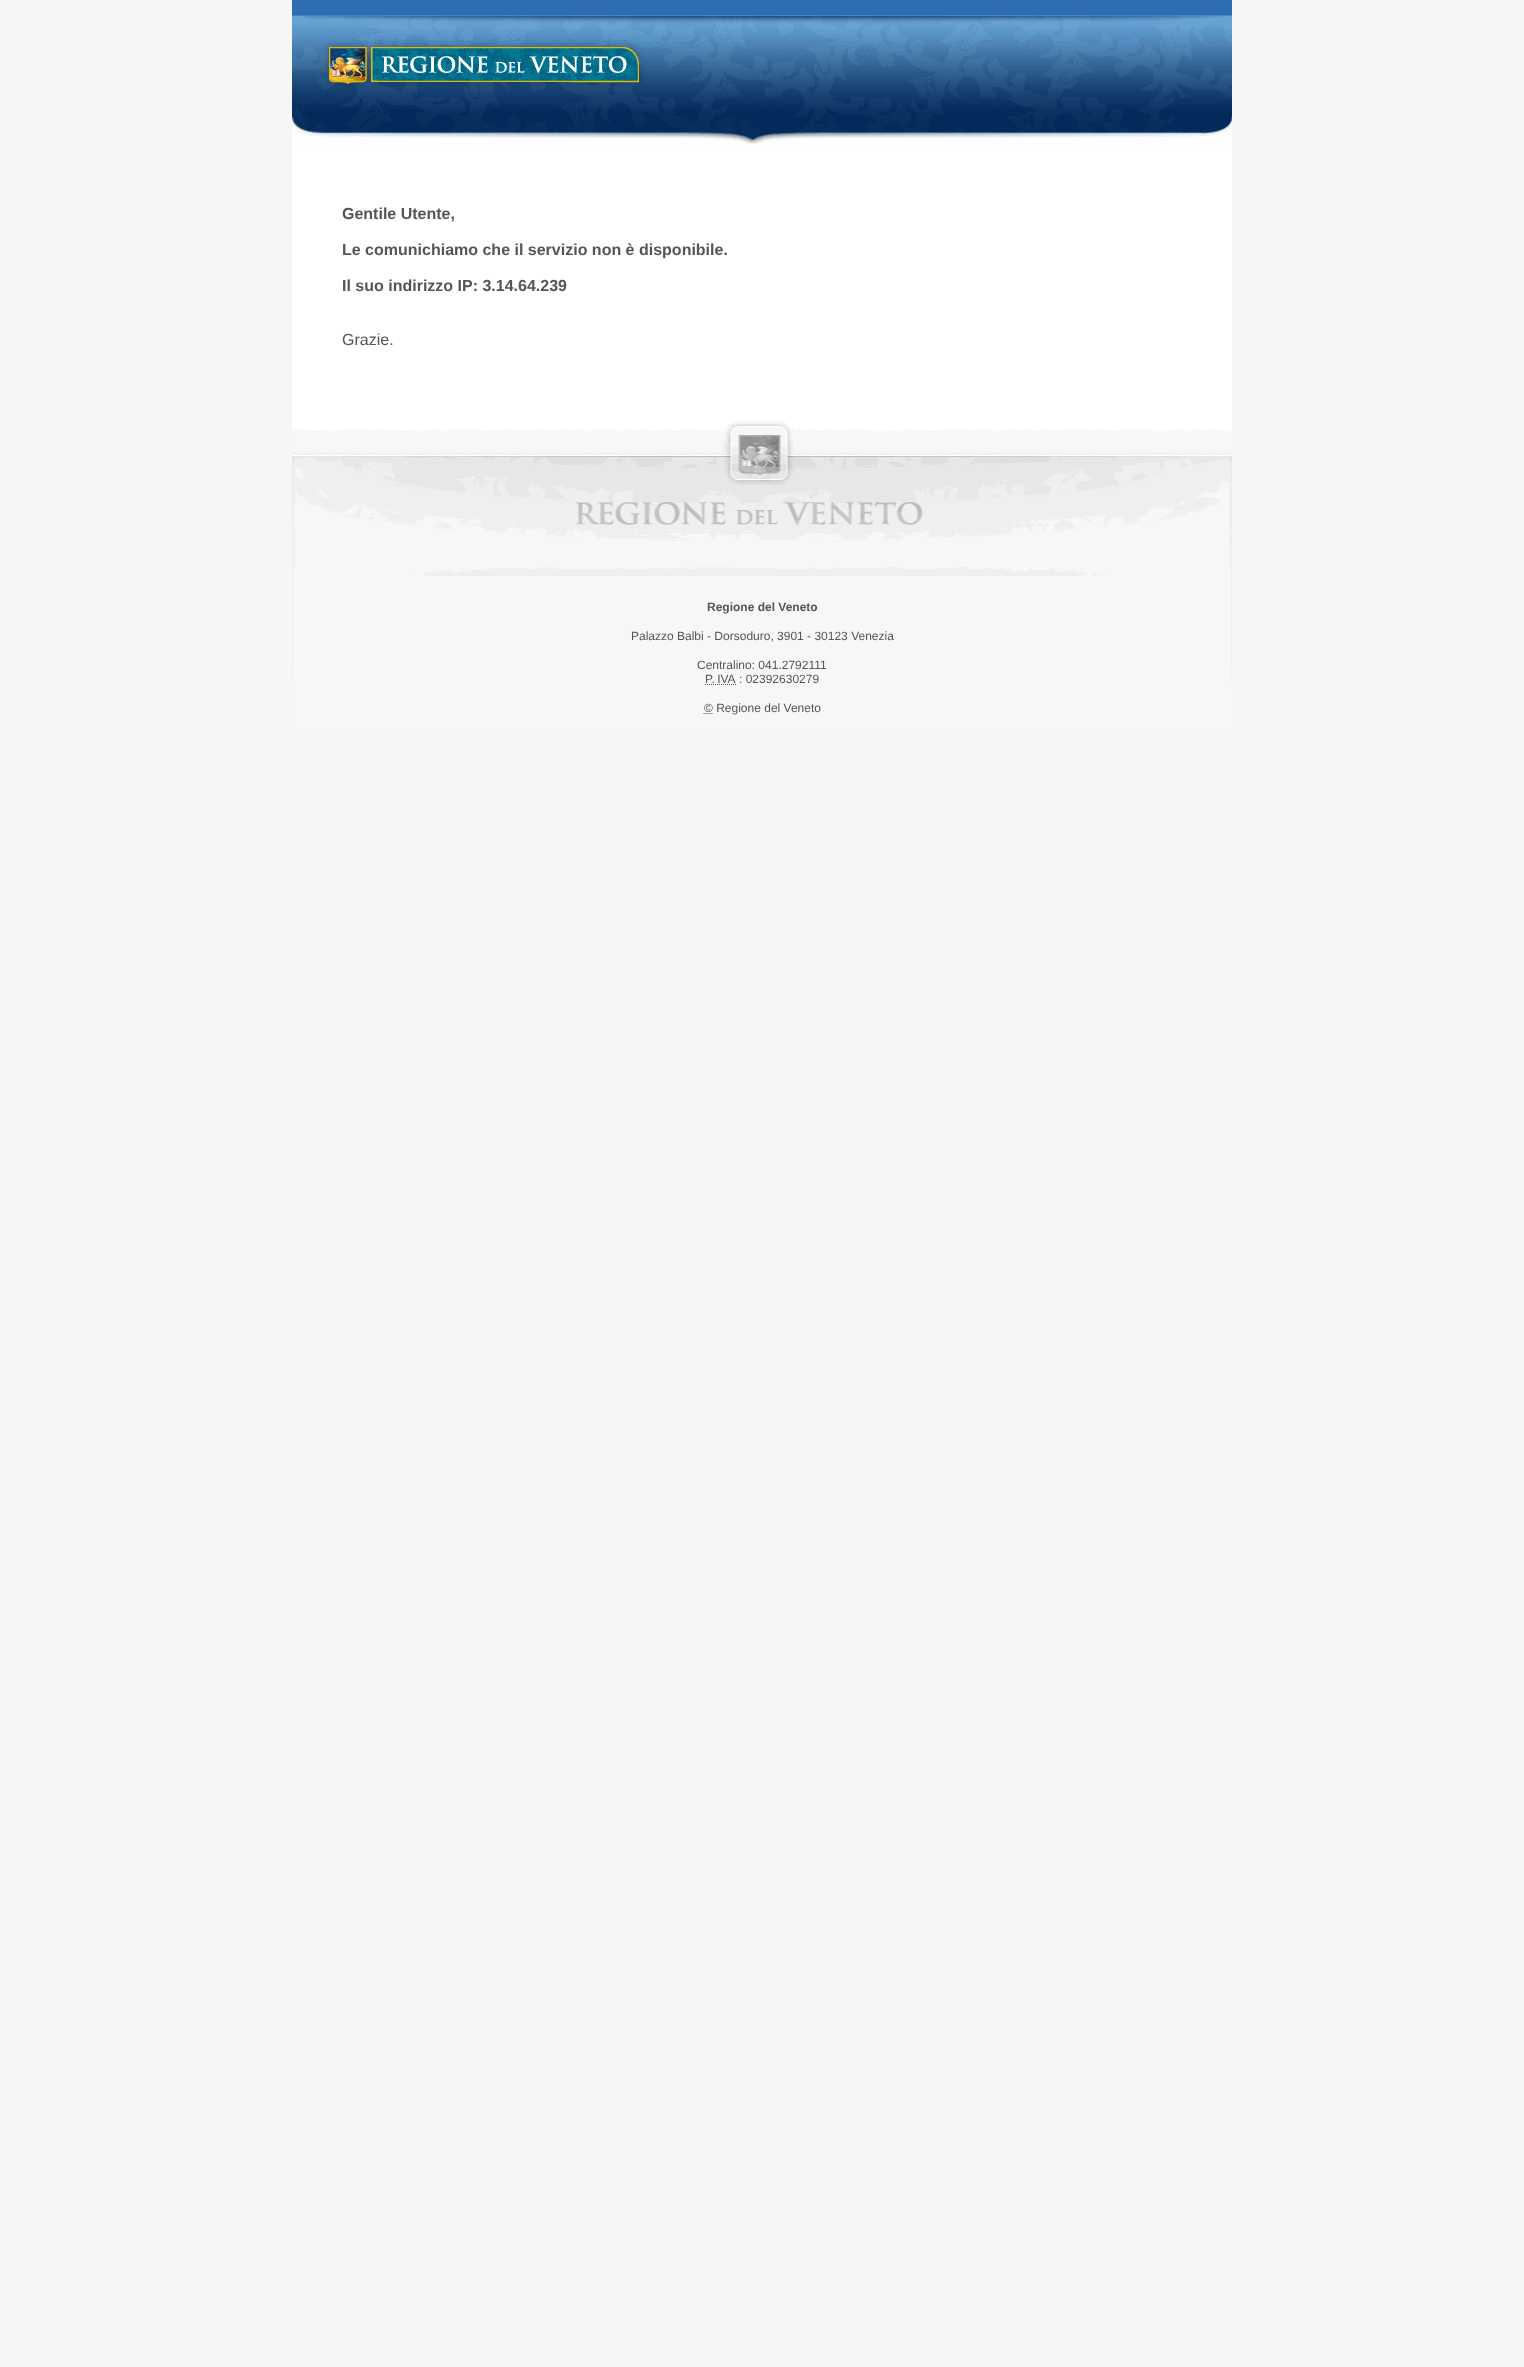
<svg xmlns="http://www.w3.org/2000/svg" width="1524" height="2367">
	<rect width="100%" height="100%" fill="#F6F6F6" />
	<rect x="292" y="145" width="940" height="276" fill="#FFFFFF" />
	<image x="292" y="0" width="940" height="145" href="assets/img1.png" />
	<g font-family="Liberation Sans" font-size="16" font-weight="700" fill="#555555">
		<text x="342" y="219">Gentile Utente,</text>
		<text x="342" y="255">Le comunichiamo che il servizio non è disponibile.</text>
		<text x="342" y="291">Il suo indirizzo IP: 3.14.64.239</text>
	</g>
	<text x="342" y="345" font-family="Liberation Sans" font-size="16" fill="#555555">Grazie.</text>
	<image x="292" y="421" width="940" height="309" href="assets/img2.png" />
	<text x="707" y="611" font-family="Liberation Sans" font-size="12" font-weight="700" fill="#555555">Regione del Veneto</text>
	<g font-family="Liberation Sans" font-size="12" fill="#555555">
		<text x="631" y="640">Palazzo Balbi - Dorsoduro, 3901 - 30123 Venezia</text>
		<text x="697" y="669">Centralino: 041.2792111</text>
		<text x="705" y="683" word-spacing="-1">P. IVA</text>
	</g>
	<path d="M705 684.5H736" fill="none" stroke="#555555" stroke-dasharray="1 1" />
	<text x="739" y="683" font-family="Liberation Sans" font-size="12" fill="#555555">: 02392630279</text>
	<path d="M703.5 713.5H712.5" fill="none" stroke="#555555" stroke-dasharray="1 1" />
	<text x="704" y="712" font-family="Liberation Sans" font-size="12" fill="#555555">© Regione del Veneto</text>
</svg>
